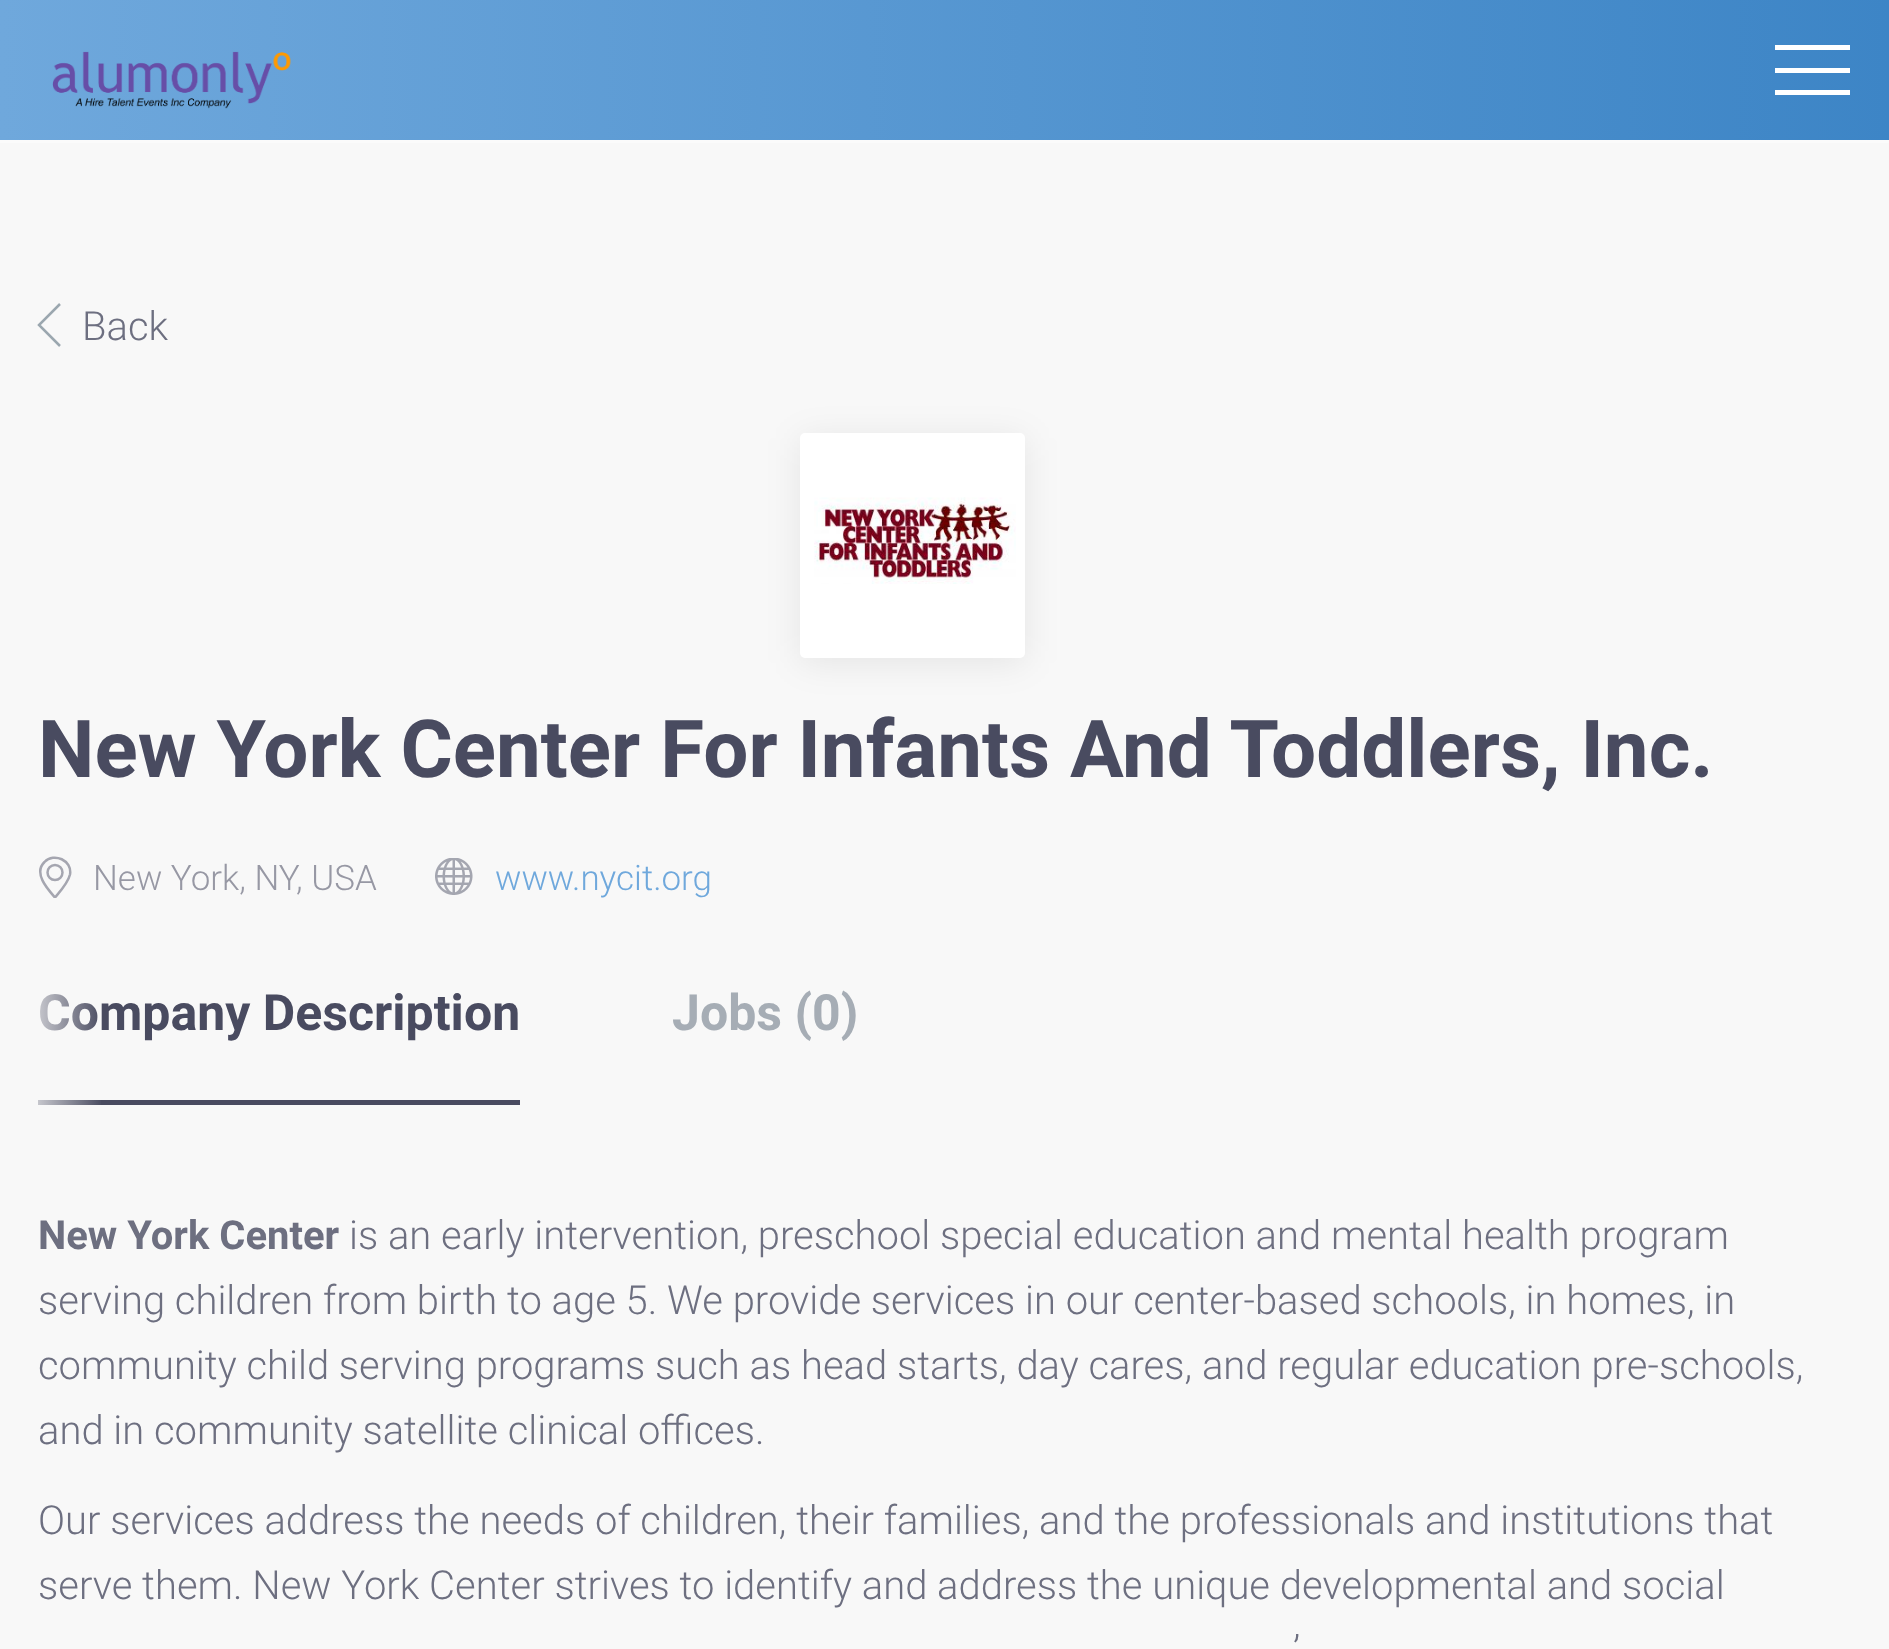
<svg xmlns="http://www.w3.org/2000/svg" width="1889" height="1649">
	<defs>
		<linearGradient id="g1" gradientUnits="userSpaceOnUse" x1="0" y1="70" x2="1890" y2="70"><stop offset="0" stop-color="#6FA8DC" /><stop offset="1" stop-color="#3D85C6" /></linearGradient>
		<clipPath id="clip1"><rect x="38" y="855" width="35" height="43" /></clipPath>
		<linearGradient id="g2" gradientUnits="userSpaceOnUse" x1="12" y1="1053" x2="163" y2="1053"><stop offset="0" stop-color="#F8F8F8" /><stop offset="0.6" stop-color="#F8F8F8" stop-opacity="0" /><stop offset="1" stop-color="#F8F8F8" stop-opacity="0" /></linearGradient>
	</defs>
	<rect width="100%" height="100%" fill="#F8F8F8" />
	<rect x="0" y="0" width="1889" height="140" fill="url(#g1)" />
	<rect x="1775" y="45" width="75" height="5" fill="#FFFFFF" />
	<rect x="1775" y="68" width="75" height="5" fill="#FFFFFF" />
	<rect x="1775" y="90" width="75" height="5" fill="#FFFFFF" />
	<rect x="0" y="140" width="1889" height="3" fill="#FBFBFB" />
	<image x="52" y="51" width="239" height="58" href="assets/img1.png" />
	<path d="M60 346L39 325L60 304" fill="none" stroke="#9BA7AF" stroke-width="2.5" />
	<text x="82" y="340" font-family="Roboto" font-size="40" font-weight="300" fill="#6D6F80">Back</text>
	<rect x="800" y="438" width="225" height="225" rx="5" fill="#000000" fill-opacity="0.08" filter="blur(17.5px)" />
	<rect x="800" y="433" width="225" height="225" rx="5" fill="#FFFFFF" />
	<image x="814" y="497" width="202" height="87" href="assets/img2.png" />
	<text x="38" y="777" font-family="Roboto" font-size="80" font-weight="700" fill="#494B60">New York Center For Infants And Toddlers, Inc.</text>
	<g clip-path="url(#clip1)">
		<path d="M55 897.5C60.5 891 68 883 70 874.5C72.5 860.5 54 852 44.5 862C33 873 47.5 889 55 897.5Z" fill="none" stroke="#A5A6B0" stroke-width="2.5" />
	</g>
	<circle cx="55" cy="872.5" r="7.5" fill="none" stroke="#A5A6B0" stroke-width="2.5" />
	<text x="93" y="890" font-family="Roboto" font-size="35" font-weight="300" fill="#9798A4">New York, NY, USA</text>
	<image x="435" y="858" width="38" height="37" href="assets/img3.png" />
	<text x="495" y="890" font-family="Roboto" font-size="35" font-weight="300" fill="#6FA8DC">www.nycit.org</text>
	<rect x="38" y="1100" width="482" height="5" fill="#494B60" />
	<text x="38" y="1030" font-family="Roboto" font-size="50" font-weight="700" fill="#494B60">Company Description</text>
	<text x="672" y="1030" font-family="Roboto" font-size="50" font-weight="700" fill="#A6ADB5">Jobs (0)</text>
	<rect x="38" y="994" width="63" height="111" fill="url(#g2)" />
	<text x="38" y="1249" font-family="Roboto" font-size="40" font-weight="700" fill="#6D6F80">New York Center</text>
	<g font-family="Roboto" font-size="40" font-weight="300" fill="#6D6F80">
		<text x="349" y="1249">is an early intervention, preschool special education and mental health program</text>
		<text x="38" y="1314">serving children from birth to age 5. We provide services in our center-based schools, in homes, in</text>
		<text x="38" y="1379">community child serving programs such as head starts, day cares, and regular education pre-schools,</text>
		<text x="38" y="1444">and in community satellite clinical offices.</text>
		<text x="38" y="1534">Our services address the needs of children, their families, and the professionals and institutions that</text>
		<text x="38" y="1599">serve them. New York Center strives to identify and address the unique developmental and social</text>
		<text x="1293" y="1664">’</text>
	</g>
</svg>
